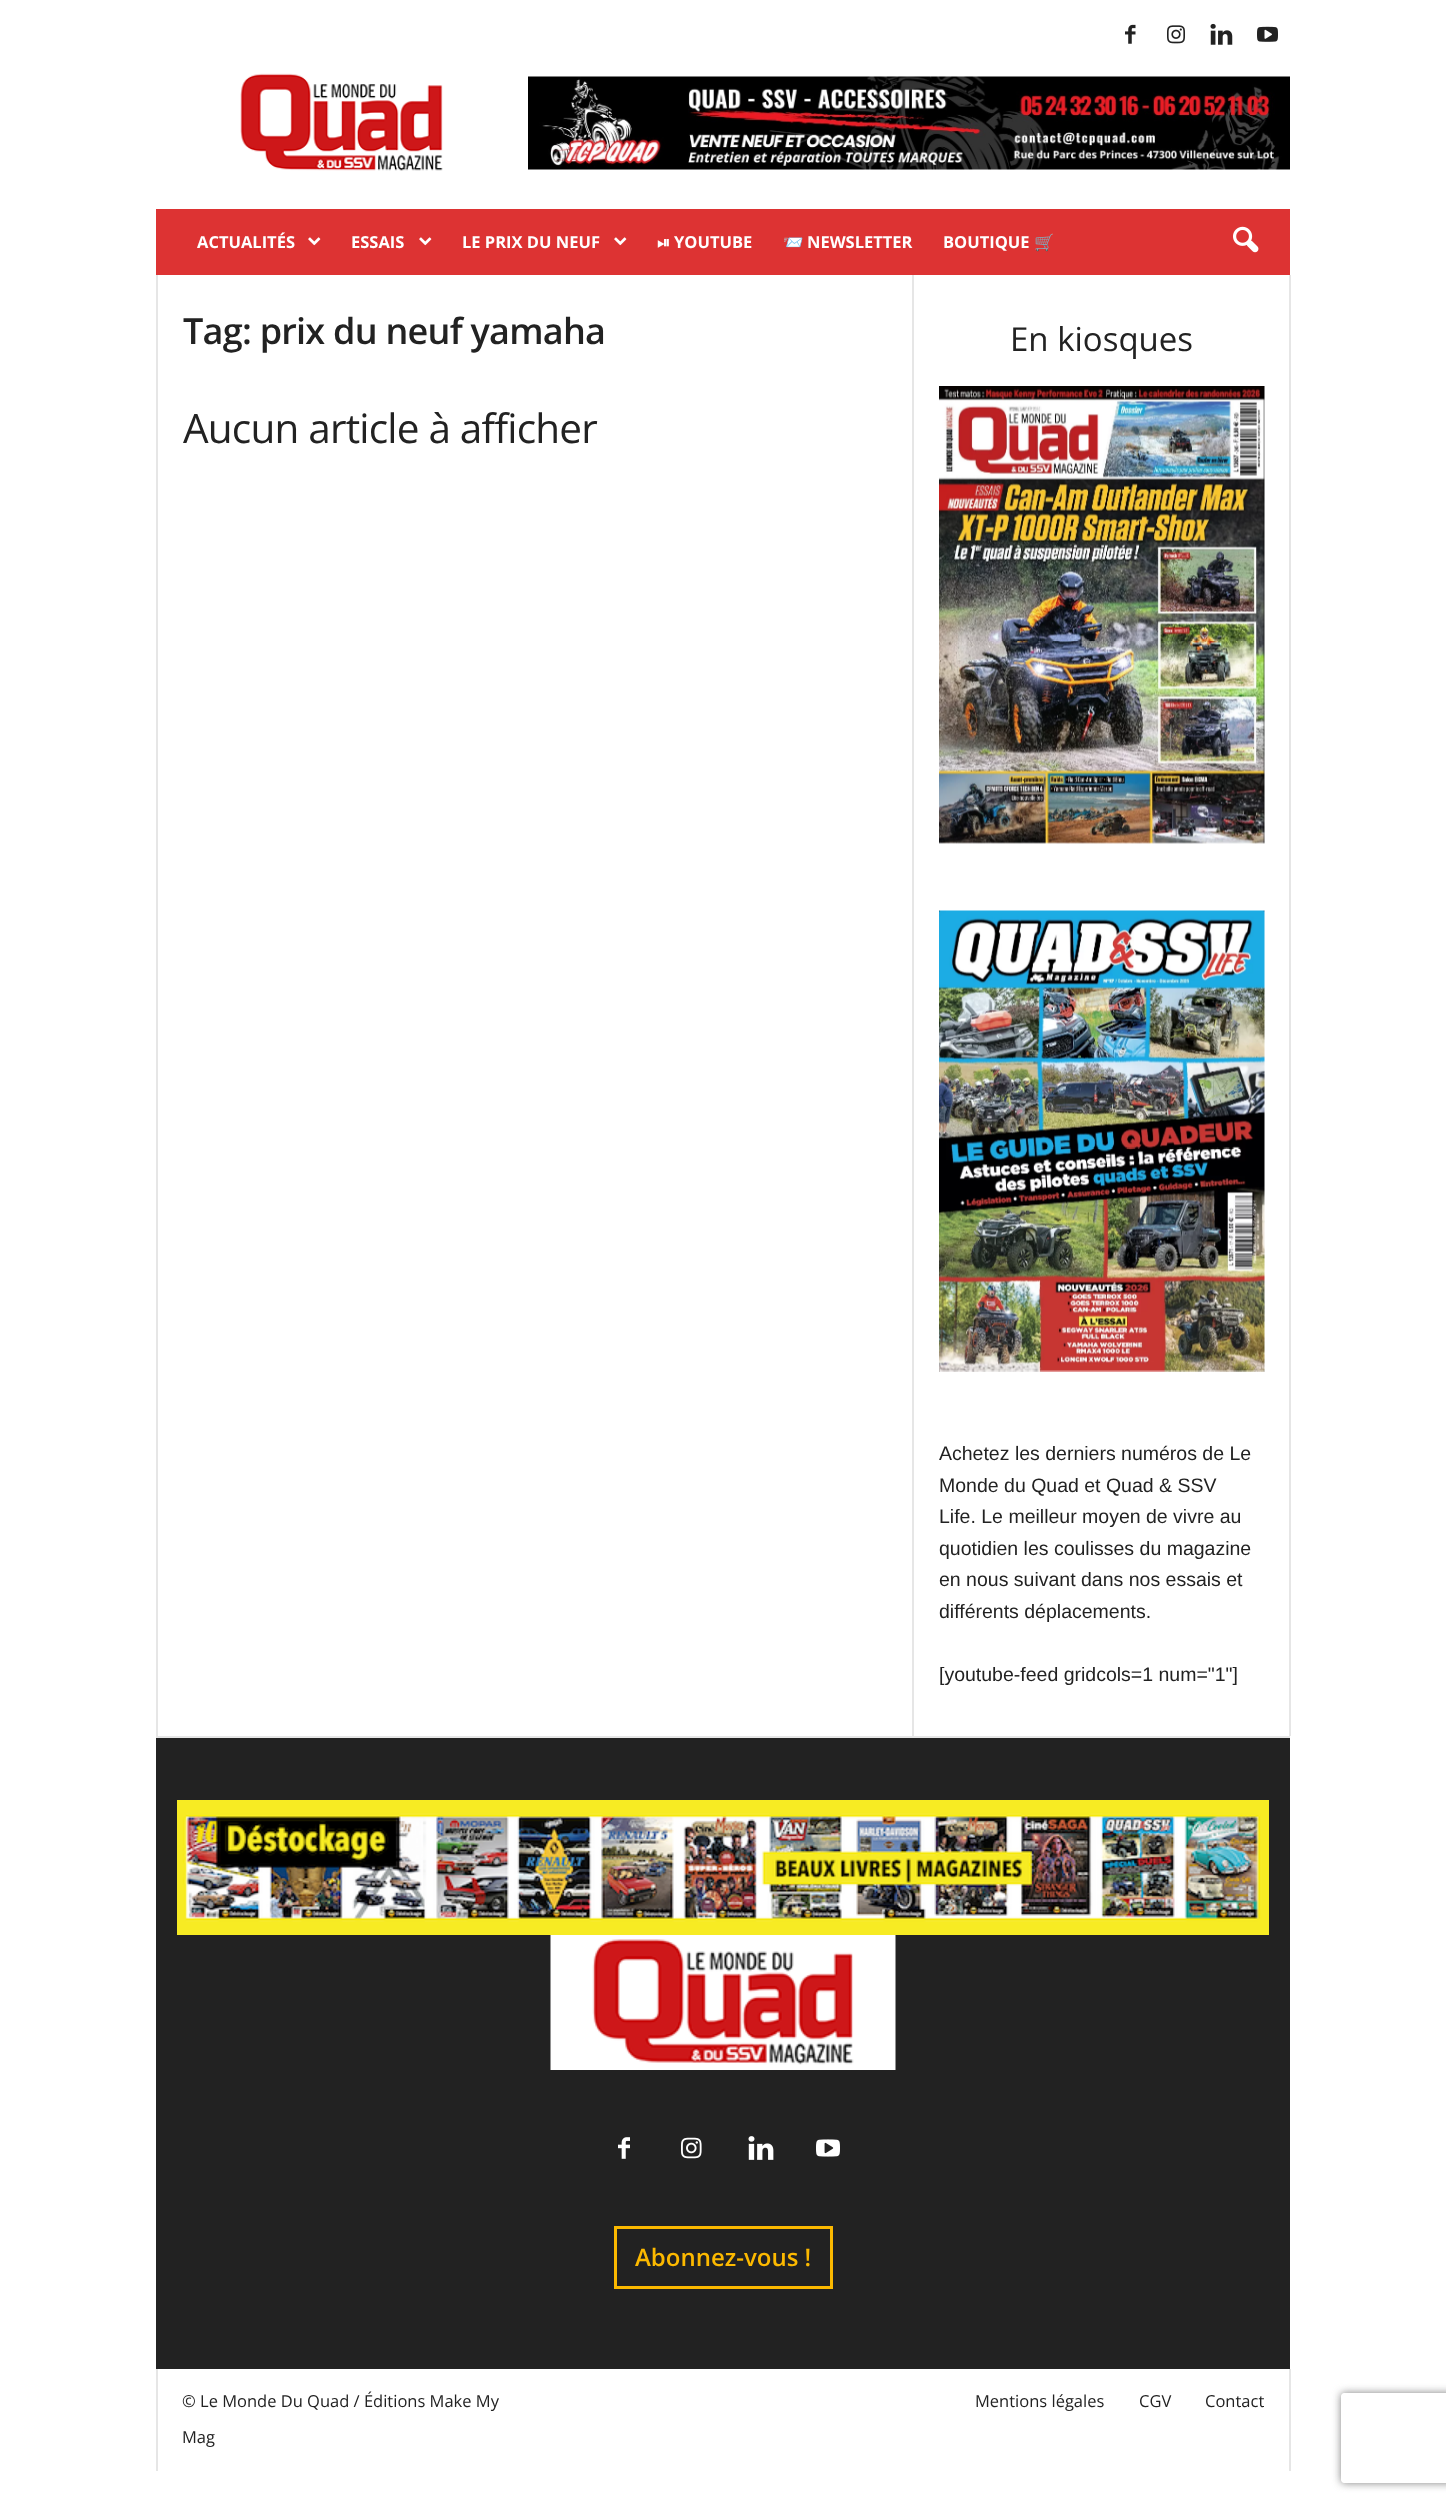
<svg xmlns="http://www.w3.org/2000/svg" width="1446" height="2503">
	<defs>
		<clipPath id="clip1"><path d="M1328 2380H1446V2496H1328ZM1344 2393H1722C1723.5 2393 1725 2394.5 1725 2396V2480C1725 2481.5 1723.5 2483 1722 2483H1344C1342.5 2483 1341 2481.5 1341 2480V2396C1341 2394.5 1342.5 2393 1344 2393Z" clip-rule="evenodd" /></clipPath>
	</defs>
	<rect width="100%" height="100%" fill="#FFFFFF" />
	<image x="1125" y="24" width="11" height="20" href="assets/img1.png" />
	<image x="1167" y="25" width="18" height="19" href="assets/img2.png" />
	<image x="1210" y="23" width="23" height="22" href="assets/img3.png" />
	<image x="1257" y="26" width="21" height="16" href="assets/img4.png" />
	<image x="240" y="73" width="203" height="98" href="assets/img5.png" />
	<image x="528" y="76" width="762" height="94" href="assets/img6.png" />
	<rect x="156" y="209" width="1134" height="66" fill="#DD3333" />
	<text x="197" y="248" font-family="Open Sans" font-size="16.5" font-weight="700" fill="#FFFFFF">ACTUALITÉS</text>
	<image x="308" y="237" width="13" height="9" href="assets/img7.png" />
	<text x="351" y="248" font-family="Open Sans" font-size="16.5" font-weight="700" fill="#FFFFFF">ESSAIS</text>
	<image x="419" y="237" width="13" height="9" href="assets/img7.png" />
	<text x="462" y="248" font-family="Open Sans" font-size="16.5" font-weight="700" fill="#FFFFFF">LE PRIX DU NEUF</text>
	<image x="614" y="237" width="13" height="9" href="assets/img7.png" />
	<text x="657" y="248" font-family="FreeSans" font-size="16.5" font-weight="700" fill="#FFFFFF">⏯</text>
	<text x="674" y="248" font-family="Open Sans" font-size="16.5" font-weight="700" fill="#FFFFFF">YOUTUBE</text>
	<text x="783" y="248" font-family="Noto Color Emoji" font-size="16.5" font-weight="700" fill="#FFFFFF">📨</text>
	<g font-family="Open Sans" font-size="16.5" font-weight="700" fill="#FFFFFF">
		<text x="807" y="248">NEWSLETTER</text>
		<text x="943" y="248">BOUTIQUE</text>
	</g>
	<text x="1034" y="248" font-family="Noto Color Emoji" font-size="16.5" font-weight="700" fill="#FFFFFF">🛒</text>
	<image x="1233" y="226" width="26" height="27" href="assets/img8.png" />
	<rect x="156" y="1736" width="1134" height="2" fill="#E6E6E6" />
	<rect x="156" y="275" width="2" height="1461" fill="#E6E6E6" />
	<text x="183" y="344" font-family="Open Sans" font-size="36" font-weight="600" letter-spacing="-0.75" fill="#222222">Tag: prix du neuf yamaha</text>
	<text x="183" y="443" font-family="Open Sans" font-size="40.5" letter-spacing="-0.8" fill="#222222">Aucun article à afficher</text>
	<rect x="912" y="275" width="2" height="1461" fill="#E6E6E6" />
	<text x="1010" y="351" font-family="Open Sans" font-size="33" fill="#222222">En kiosques</text>
	<image x="939" y="386" width="326" height="458" href="assets/img9.png" />
	<image x="939" y="910" width="326" height="462" href="assets/img10.png" />
	<g font-family="Liberation Sans" font-size="19.5" fill="#222222">
		<text x="939" y="1460">Achetez les derniers numéros de Le</text>
		<text x="939" y="1492">Monde du Quad et Quad &amp; SSV</text>
		<text x="939" y="1523">Life. Le meilleur moyen de vivre au</text>
		<text x="939" y="1555">quotidien les coulisses du magazine</text>
		<text x="939" y="1586">en nous suivant dans nos essais et</text>
		<text x="939" y="1618">différents déplacements.</text>
		<text x="939" y="1681">[youtube-feed gridcols=1 num="1"]</text>
	</g>
	<rect x="1289" y="275" width="2" height="1461" fill="#E6E6E6" />
	<rect x="156" y="1738" width="1134" height="631" fill="#222222" />
	<image x="177" y="1800" width="1092" height="135" href="assets/img11.png" />
	<image x="550" y="1935" width="346" height="135" href="assets/img12.png" />
	<image x="618" y="2137" width="12" height="22" href="assets/img13.png" />
	<image x="681" y="2137" width="21" height="22" href="assets/img14.png" />
	<image x="748" y="2136" width="26" height="24" href="assets/img15.png" />
	<image x="816" y="2139" width="24" height="18" href="assets/img16.png" />
	<rect x="615.5" y="2227.5" width="216" height="60" fill="none" stroke="#FCB900" stroke-width="3" />
	<text x="635" y="2266" font-family="Open Sans" font-size="24" font-weight="600" fill="#FCB900">Abonnez-vous !</text>
	<rect x="156" y="2369" width="2" height="102" fill="#E6E6E6" />
	<g font-family="Open Sans" font-size="16.5" fill="#222222">
		<text x="182" y="2407">© Le Monde Du Quad / Éditions Make My</text>
		<text x="182" y="2443">Mag</text>
		<text x="975" y="2407">Mentions légales</text>
		<text x="1139" y="2407">CGV</text>
		<text x="1205" y="2407">Contact</text>
	</g>
	<rect x="1289" y="2369" width="2" height="102" fill="#E6E6E6" />
	<g clip-path="url(#clip1)">
		<rect x="1341" y="2393" width="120" height="90" rx="3" fill="#808080" filter="blur(4px)" />
	</g>
</svg>
